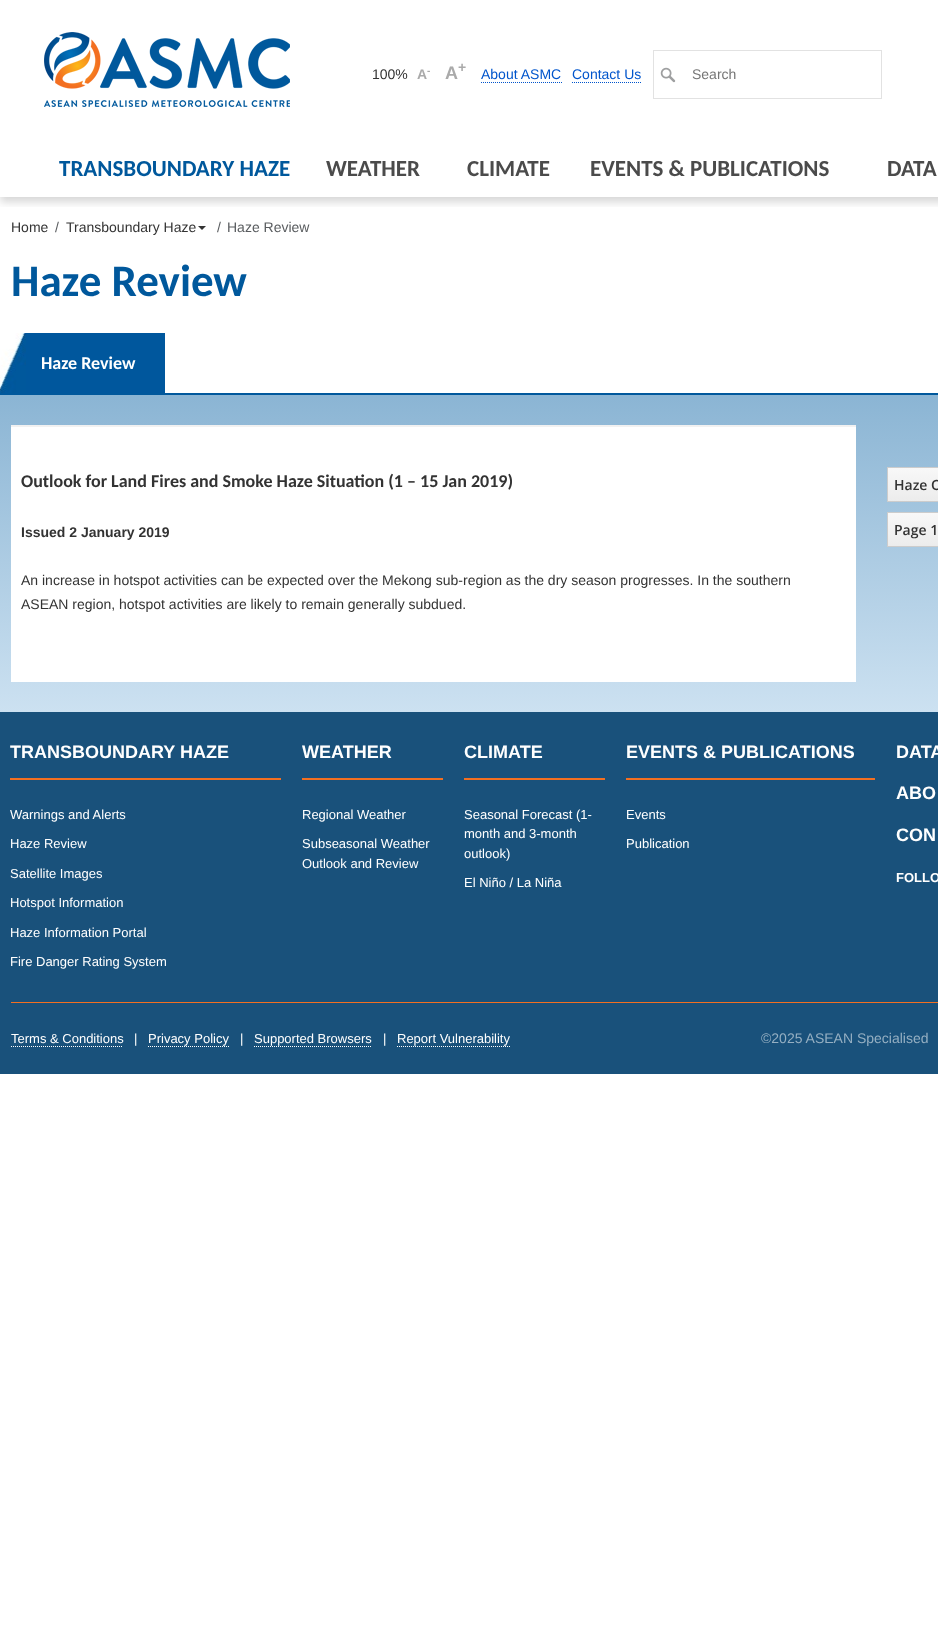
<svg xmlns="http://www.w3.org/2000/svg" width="938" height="1646">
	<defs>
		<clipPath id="clip1"><rect x="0" y="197" width="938" height="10" /></clipPath>
		<linearGradient id="g1" gradientUnits="userSpaceOnUse" x1="540" y1="333" x2="540" y2="712"><stop offset="0" stop-color="#7EACCE" /><stop offset="1" stop-color="#CCE1F1" /></linearGradient>
		<linearGradient id="g2" gradientUnits="userSpaceOnUse" x1="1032" y1="468" x2="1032" y2="501"><stop offset="0" stop-color="#F8F8F8" /><stop offset="1" stop-color="#ECECEC" /></linearGradient>
		<linearGradient id="g3" gradientUnits="userSpaceOnUse" x1="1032" y1="513" x2="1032" y2="546"><stop offset="0" stop-color="#F8F8F8" /><stop offset="1" stop-color="#ECECEC" /></linearGradient>
	</defs>
	<rect width="100%" height="100%" fill="#FFFFFF" />
	<g clip-path="url(#clip1)">
		<rect x="0" y="5" width="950" height="197" fill="#020303" fill-opacity="0.16" filter="blur(4px)" />
	</g>
	<image x="44" y="32" width="246" height="75" href="assets/img1.png" />
	<text x="372" y="79" font-family="Liberation Sans" font-size="14" fill="#333333">100%</text>
	<text x="417" y="79" font-family="Liberation Sans" font-size="14" font-weight="700" fill="#AAAAAA">A</text>
	<text x="427" y="74" font-family="Liberation Sans" font-size="10" font-weight="700" fill="#AAAAAA">-</text>
	<text x="445" y="79" font-family="Liberation Sans" font-size="18" font-weight="700" fill="#AAAAAA">A</text>
	<text x="458" y="72" font-family="Liberation Sans" font-size="14" font-weight="700" fill="#AAAAAA">+</text>
	<text x="481" y="79" font-family="Liberation Sans" font-size="14" fill="#0055CC">About ASMC</text>
	<path d="M481 82.5H562" fill="none" stroke="#0055CC" stroke-dasharray="1 1" />
	<text x="572" y="79" font-family="Liberation Sans" font-size="14" fill="#0055CC">Contact Us</text>
	<path d="M572 82.5H642" fill="none" stroke="#0055CC" stroke-dasharray="1 1" />
	<rect x="653.5" y="50.5" width="228" height="48" fill="none" stroke="#E2E2E2" />
	<image x="660" y="67" width="16" height="16" href="assets/img2.png" />
	<text x="692" y="79" font-family="Liberation Sans" font-size="14" fill="#757575">Search</text>
	<text x="59" y="176" font-family="Carlito" font-size="23" font-weight="700" fill="#00589C">TRANSBOUNDARY HAZE</text>
	<g font-family="Carlito" font-size="23" font-weight="700" fill="#4B4B4B">
		<text x="326" y="176">WEATHER</text>
		<text x="467" y="176">CLIMATE</text>
		<text x="590" y="176">EVENTS &amp; PUBLICATIONS</text>
		<text x="887" y="176">DATA</text>
	</g>
	<text x="11" y="232" font-family="Liberation Sans" font-size="14" fill="#333333">Home</text>
	<text x="55" y="232" font-family="Liberation Sans" font-size="14" fill="#595C5F">/</text>
	<text x="66" y="232" font-family="Liberation Sans" font-size="14" fill="#333333">Transboundary Haze</text>
	<path d="M198 226H206L202 230Z" fill="#333333" />
	<g font-family="Liberation Sans" font-size="14" fill="#595C5F">
		<text x="217" y="232">/</text>
		<text x="227" y="232">Haze Review</text>
	</g>
	<text x="11" y="296" font-family="Carlito" font-size="45" font-weight="700" fill="#00589C">Haze Review</text>
	<rect x="0" y="395" width="938" height="317" fill="url(#g1)" />
	<rect x="0" y="393" width="938" height="2" fill="#00589C" />
	<rect x="26" y="333" width="139" height="60" fill="#00579D" />
	<image x="0" y="333" width="26" height="60" href="assets/img3.png" />
	<text x="41" y="369" font-family="Carlito" font-size="18" font-weight="700" fill="#FFFFFF">Haze Review</text>
	<rect x="11" y="427" width="845" height="255" fill="#FFFFFF" />
	<rect x="11" y="425" width="845" height="2" fill="#F1F1F1" />
	<text x="21" y="487" font-family="Carlito" font-size="18" font-weight="700" fill="#333333">Outlook for Land Fires and Smoke Haze Situation (1 – 15 Jan 2019)</text>
	<text x="21" y="537" font-family="Liberation Sans" font-size="14" font-weight="700" fill="#333333">Issued 2 January 2019</text>
	<g font-family="Liberation Sans" font-size="14" fill="#333333">
		<text x="21" y="585">An increase in hotspot activities can be expected over the Mekong sub-region as the dry season progresses. In the southern</text>
		<text x="21" y="609">ASEAN region, hotspot activities are likely to remain generally subdued.</text>
	</g>
	<rect x="888" y="468" width="50" height="33" fill="url(#g2)" />
	<rect x="887.5" y="467.5" width="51" height="34" fill="none" stroke="#CCCCCC" />
	<text x="894" y="490" font-family="Open Sans" font-size="14" font-weight="600" fill="#333333">Haze O</text>
	<rect x="888" y="513" width="50" height="33" fill="url(#g3)" />
	<rect x="887.5" y="512.5" width="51" height="34" fill="none" stroke="#CCCCCC" />
	<text x="894" y="535" font-family="Open Sans" font-size="14" font-weight="600" fill="#333333">Page 1</text>
	<rect x="0" y="712" width="938" height="362" fill="#19517B" />
	<rect x="10" y="778" width="271" height="2" fill="#F36F21" />
	<text x="10" y="758" font-family="Liberation Sans" font-size="18" font-weight="700" fill="#FFFFFF">TRANSBOUNDARY HAZE</text>
	<g font-family="Liberation Sans" font-size="13" fill="#FFFFFF">
		<text x="10" y="819">Warnings and Alerts</text>
		<text x="10" y="848">Haze Review</text>
		<text x="10" y="878">Satellite Images</text>
		<text x="10" y="907">Hotspot Information</text>
		<text x="10" y="937">Haze Information Portal</text>
		<text x="10" y="966">Fire Danger Rating System</text>
	</g>
	<rect x="302" y="778" width="141" height="2" fill="#F36F21" />
	<text x="302" y="758" font-family="Liberation Sans" font-size="18" font-weight="700" fill="#FFFFFF">WEATHER</text>
	<g font-family="Liberation Sans" font-size="13" fill="#FFFFFF">
		<text x="302" y="819">Regional Weather</text>
		<text x="302" y="848">Subseasonal Weather</text>
		<text x="302" y="868">Outlook and Review</text>
	</g>
	<rect x="464" y="778" width="141" height="2" fill="#F36F21" />
	<text x="464" y="758" font-family="Liberation Sans" font-size="18" font-weight="700" fill="#FFFFFF">CLIMATE</text>
	<g font-family="Liberation Sans" font-size="13" fill="#FFFFFF">
		<text x="464" y="819">Seasonal Forecast (1-</text>
		<text x="464" y="838">month and 3-month</text>
		<text x="464" y="858">outlook)</text>
		<text x="464" y="887">El Niño / La Niña</text>
	</g>
	<rect x="626" y="778" width="249" height="2" fill="#F36F21" />
	<text x="626" y="758" font-family="Liberation Sans" font-size="18" font-weight="700" fill="#FFFFFF">EVENTS &amp; PUBLICATIONS</text>
	<g font-family="Liberation Sans" font-size="13" fill="#FFFFFF">
		<text x="626" y="819">Events</text>
		<text x="626" y="848">Publication</text>
	</g>
	<g font-family="Liberation Sans" font-size="18" font-weight="700" fill="#FFFFFF">
		<text x="896" y="758">DATA</text>
		<text x="896" y="799">ABO</text>
		<text x="896" y="841">CON</text>
	</g>
	<text x="896" y="882" font-family="Liberation Sans" font-size="13" font-weight="700" fill="#FFFFFF">FOLLO</text>
	<rect x="11" y="1002" width="927" height="1" fill="#F36F21" />
	<text x="11" y="1043" font-family="Liberation Sans" font-size="13" fill="#FFFFFF">Terms &amp; Conditions</text>
	<path d="M11 1046.5H123" fill="none" stroke="#FFFFFF" stroke-dasharray="1 1" />
	<g font-family="Liberation Sans" font-size="13" fill="#FFFFFF">
		<text x="134" y="1043">|</text>
		<text x="148" y="1043">Privacy Policy</text>
	</g>
	<path d="M148 1046.5H229" fill="none" stroke="#FFFFFF" stroke-dasharray="1 1" />
	<g font-family="Liberation Sans" font-size="13" fill="#FFFFFF">
		<text x="240" y="1043">|</text>
		<text x="254" y="1043">Supported Browsers</text>
	</g>
	<path d="M254 1046.5H372" fill="none" stroke="#FFFFFF" stroke-dasharray="1 1" />
	<g font-family="Liberation Sans" font-size="13" fill="#FFFFFF">
		<text x="383" y="1043">|</text>
		<text x="397" y="1043">Report Vulnerability</text>
	</g>
	<path d="M397 1046.5H510" fill="none" stroke="#FFFFFF" stroke-dasharray="1 1" />
	<text x="761" y="1043" font-family="Liberation Sans" font-size="14" fill="#95AFC2">©2025 ASEAN Specialised</text>
</svg>
